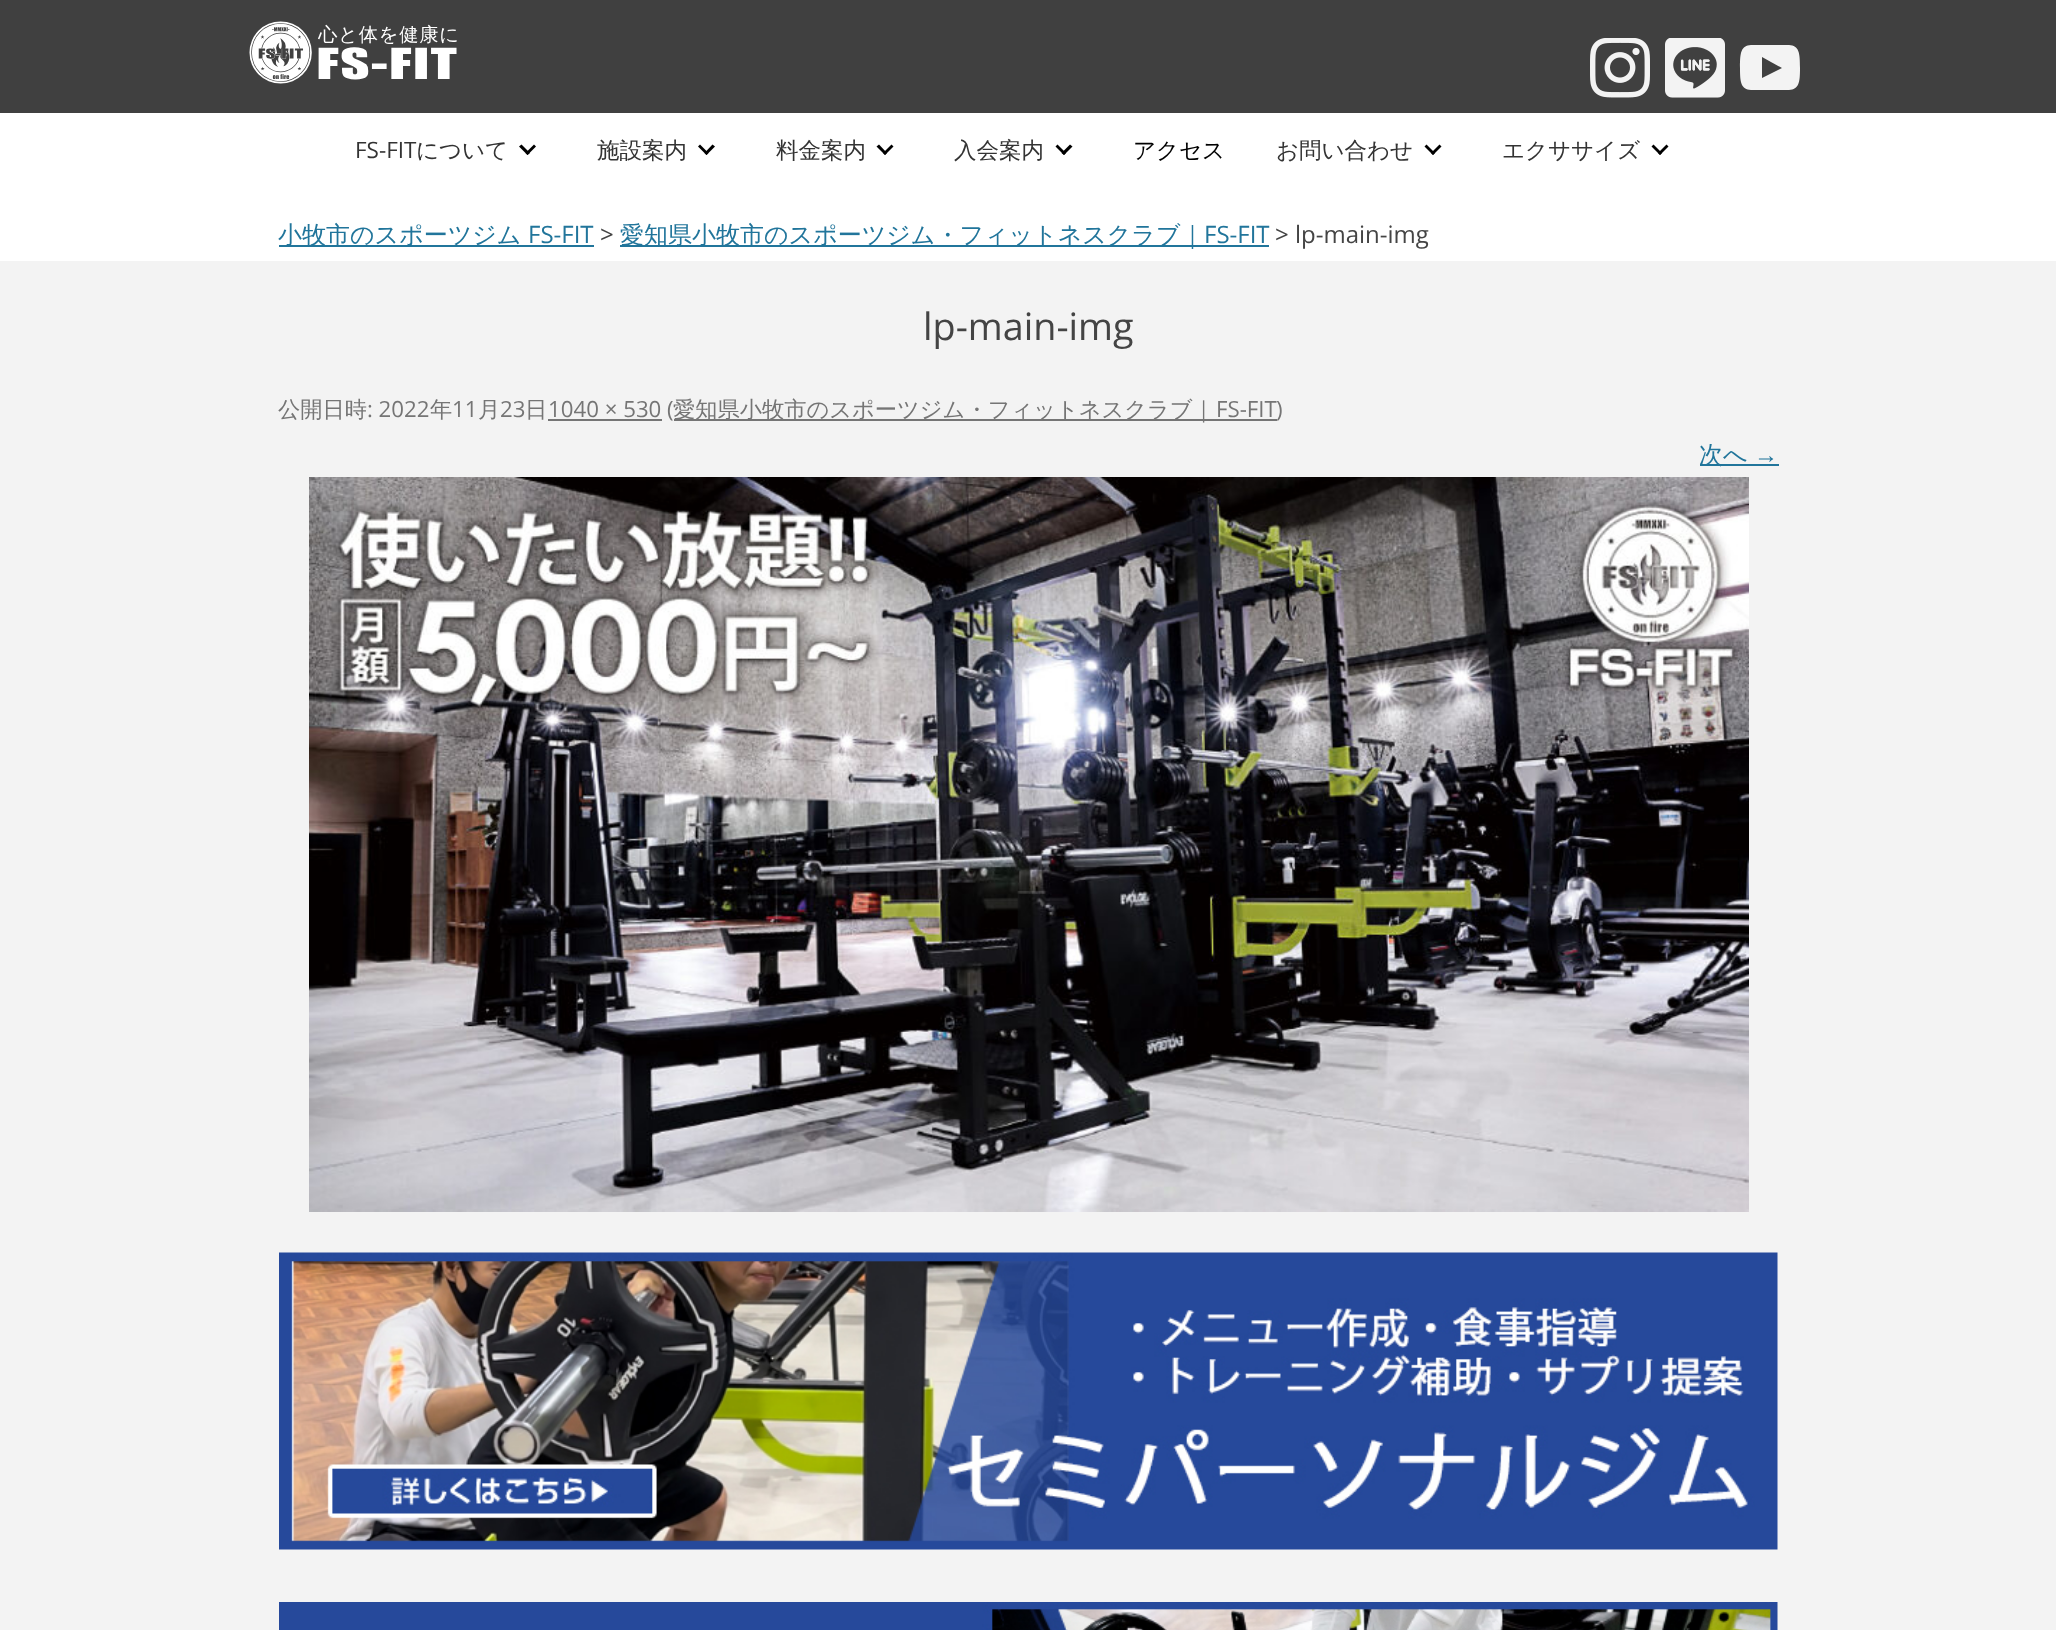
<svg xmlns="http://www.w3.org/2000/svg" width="2056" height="1630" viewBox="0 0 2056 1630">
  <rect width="100%" height="100%" fill="#ffffff"/>
  <rect x="0" y="0" width="2056" height="113" fill="#404040"/>
  <image x="249" y="21" width="208" height="63" href="img1.png"/>
  <image x="1590" y="38" width="60" height="60" href="img2.png"/>
  <image x="1665" y="38" width="60" height="60" href="img3.png"/>
  <path d="M1762 78V57L1782 68ZM1789 45C1780 45 1760 45 1751 45C1741 46 1740 52 1740 68C1740 83 1741 89 1751 90C1760 90 1780 90 1789 90C1799 89 1800 83 1800 68C1800 52 1799 46 1789 45Z" fill="#f3f3f3"/>
  <text x="355" y="158" font-family="Open Sans" font-size="22.5" fill="#333333">FS-FIT</text>
  <text x="416" y="158" font-family="WenQuanYi Zen Hei" font-size="22.5" font-weight="500" fill="#333333">について</text>
  <path d="M536 146.5L527.5 155L525.5 153L534 144.5Z" fill="#000000"/>
  <path d="M530 153L527.5 155L519 146.5L521.5 144.5Z" fill="#000000"/>
  <text x="597" y="158" font-family="WenQuanYi Zen Hei" font-size="22.5" font-weight="500" fill="#333333">施設案内</text>
  <path d="M715 146.5L706.5 155L704.5 153L712.5 144.5Z" fill="#000000"/>
  <path d="M708.5 153L706.5 155L698 146.5L700 144.5Z" fill="#000000"/>
  <text x="776" y="158" font-family="WenQuanYi Zen Hei" font-size="22.5" font-weight="500" fill="#333333">料金案内</text>
  <path d="M893.5 146.5L885 155L883 153L891.5 144.5Z" fill="#000000"/>
  <path d="M887 153L885 155L876.5 146.5L879 144.5Z" fill="#000000"/>
  <text x="954" y="158" font-family="WenQuanYi Zen Hei" font-size="22.5" font-weight="500" fill="#333333">入会案内</text>
  <path d="M1072.5 146.5L1064 155L1061.5 153L1070 144.5Z" fill="#000000"/>
  <path d="M1066 153L1064 155L1055.5 146.5L1057.5 144.5Z" fill="#000000"/>
  <text x="1133" y="158" font-family="WenQuanYi Zen Hei" font-size="22.5" font-weight="500" fill="#000000">アクセス</text>
  <text x="1276" y="158" font-family="WenQuanYi Zen Hei" font-size="22.5" font-weight="500" fill="#333333">お問い合わせ</text>
  <path d="M1441.5 146.5L1433 155L1431 153L1439.5 144.5Z" fill="#000000"/>
  <path d="M1435 153L1433 155L1424.5 146.5L1426.5 144.5Z" fill="#000000"/>
  <text x="1502" y="158" font-family="WenQuanYi Zen Hei" font-size="22.5" font-weight="500" fill="#333333">エクササイズ</text>
  <path d="M1668.5 146.5L1660 155L1658 153L1666.5 144.5Z" fill="#000000"/>
  <path d="M1662 153L1660 155L1651.5 146.5L1653.5 144.5Z" fill="#000000"/>
  <rect x="279" y="245" width="315" height="2" fill="#21759b"/>
  <text x="278" y="243" font-family="WenQuanYi Zen Hei" font-size="24" font-weight="500" fill="#21759b">小牧市のスポーツジム</text>
  <text x="528" y="243" font-family="Open Sans" font-size="24" fill="#21759b">FS-FIT</text>
  <text x="600" y="243" font-family="Open Sans" font-size="24" fill="#444444">&gt;</text>
  <rect x="620" y="245" width="649" height="2" fill="#21759b"/>
  <text x="620" y="243" font-family="WenQuanYi Zen Hei" font-size="24" font-weight="500" fill="#21759b">愛知県小牧市のスポーツジム・フィットネスクラブ｜</text>
  <text x="1204" y="243" font-family="Open Sans" font-size="24" fill="#21759b">FS-FIT</text>
  <text x="1275" y="243" font-family="Open Sans" font-size="24" fill="#444444">&gt; lp-main-img</text>
  <rect x="0" y="261" width="2056" height="1369" fill="#f3f3f3"/>
  <text x="923" y="340" font-family="Open Sans" font-size="37.75" fill="#444444">lp-main-img</text>
  <text x="278" y="417" font-family="WenQuanYi Zen Hei" font-size="22.25" font-weight="500" fill="#757575">公開日時</text>
  <text x="367" y="417" font-family="Open Sans" font-size="22.25" fill="#757575">: 2022</text>
  <text x="430" y="417" font-family="WenQuanYi Zen Hei" font-size="22.25" font-weight="500" fill="#757575">年</text>
  <text x="452" y="417" font-family="Open Sans" font-size="22.25" fill="#757575">11</text>
  <text x="478" y="417" font-family="WenQuanYi Zen Hei" font-size="22.25" font-weight="500" fill="#757575">月</text>
  <text x="500" y="417" font-family="Open Sans" font-size="22.25" fill="#757575">23</text>
  <text x="525" y="417" font-family="WenQuanYi Zen Hei" font-size="22.25" font-weight="500" fill="#757575">日</text>
  <rect x="548" y="419" width="114" height="2" fill="#757575"/>
  <text x="548" y="417" font-family="Open Sans" font-size="22.25" fill="#757575">1040 × 530 (</text>
  <rect x="674" y="419" width="603" height="2" fill="#757575"/>
  <text x="673" y="417" font-family="WenQuanYi Zen Hei" font-size="22.25" font-weight="500" fill="#757575">愛知県小牧市のスポーツジム・フィットネスクラブ｜</text>
  <text x="1216" y="417" font-family="Open Sans" font-size="22.25" fill="#757575">FS-FIT</text>
  <text x="1276" y="417" font-family="Open Sans" font-size="22.25" fill="#757575">)</text>
  <rect x="1700" y="464" width="79" height="2" fill="#21759b"/>
  <text x="1699" y="463" font-family="WenQuanYi Zen Hei" font-size="24" font-weight="500" fill="#21759b">次へ</text>
  <text x="1754" y="463" font-family="Liberation Sans" font-size="24" fill="#21759b">→</text>
  <image x="309" y="477" width="1440" height="735" href="img4.png"/>
  <image x="279" y="1252" width="1499" height="298" href="img5.png"/>
  <image x="279" y="1602" width="1499" height="28" href="img6.png"/>
</svg>
